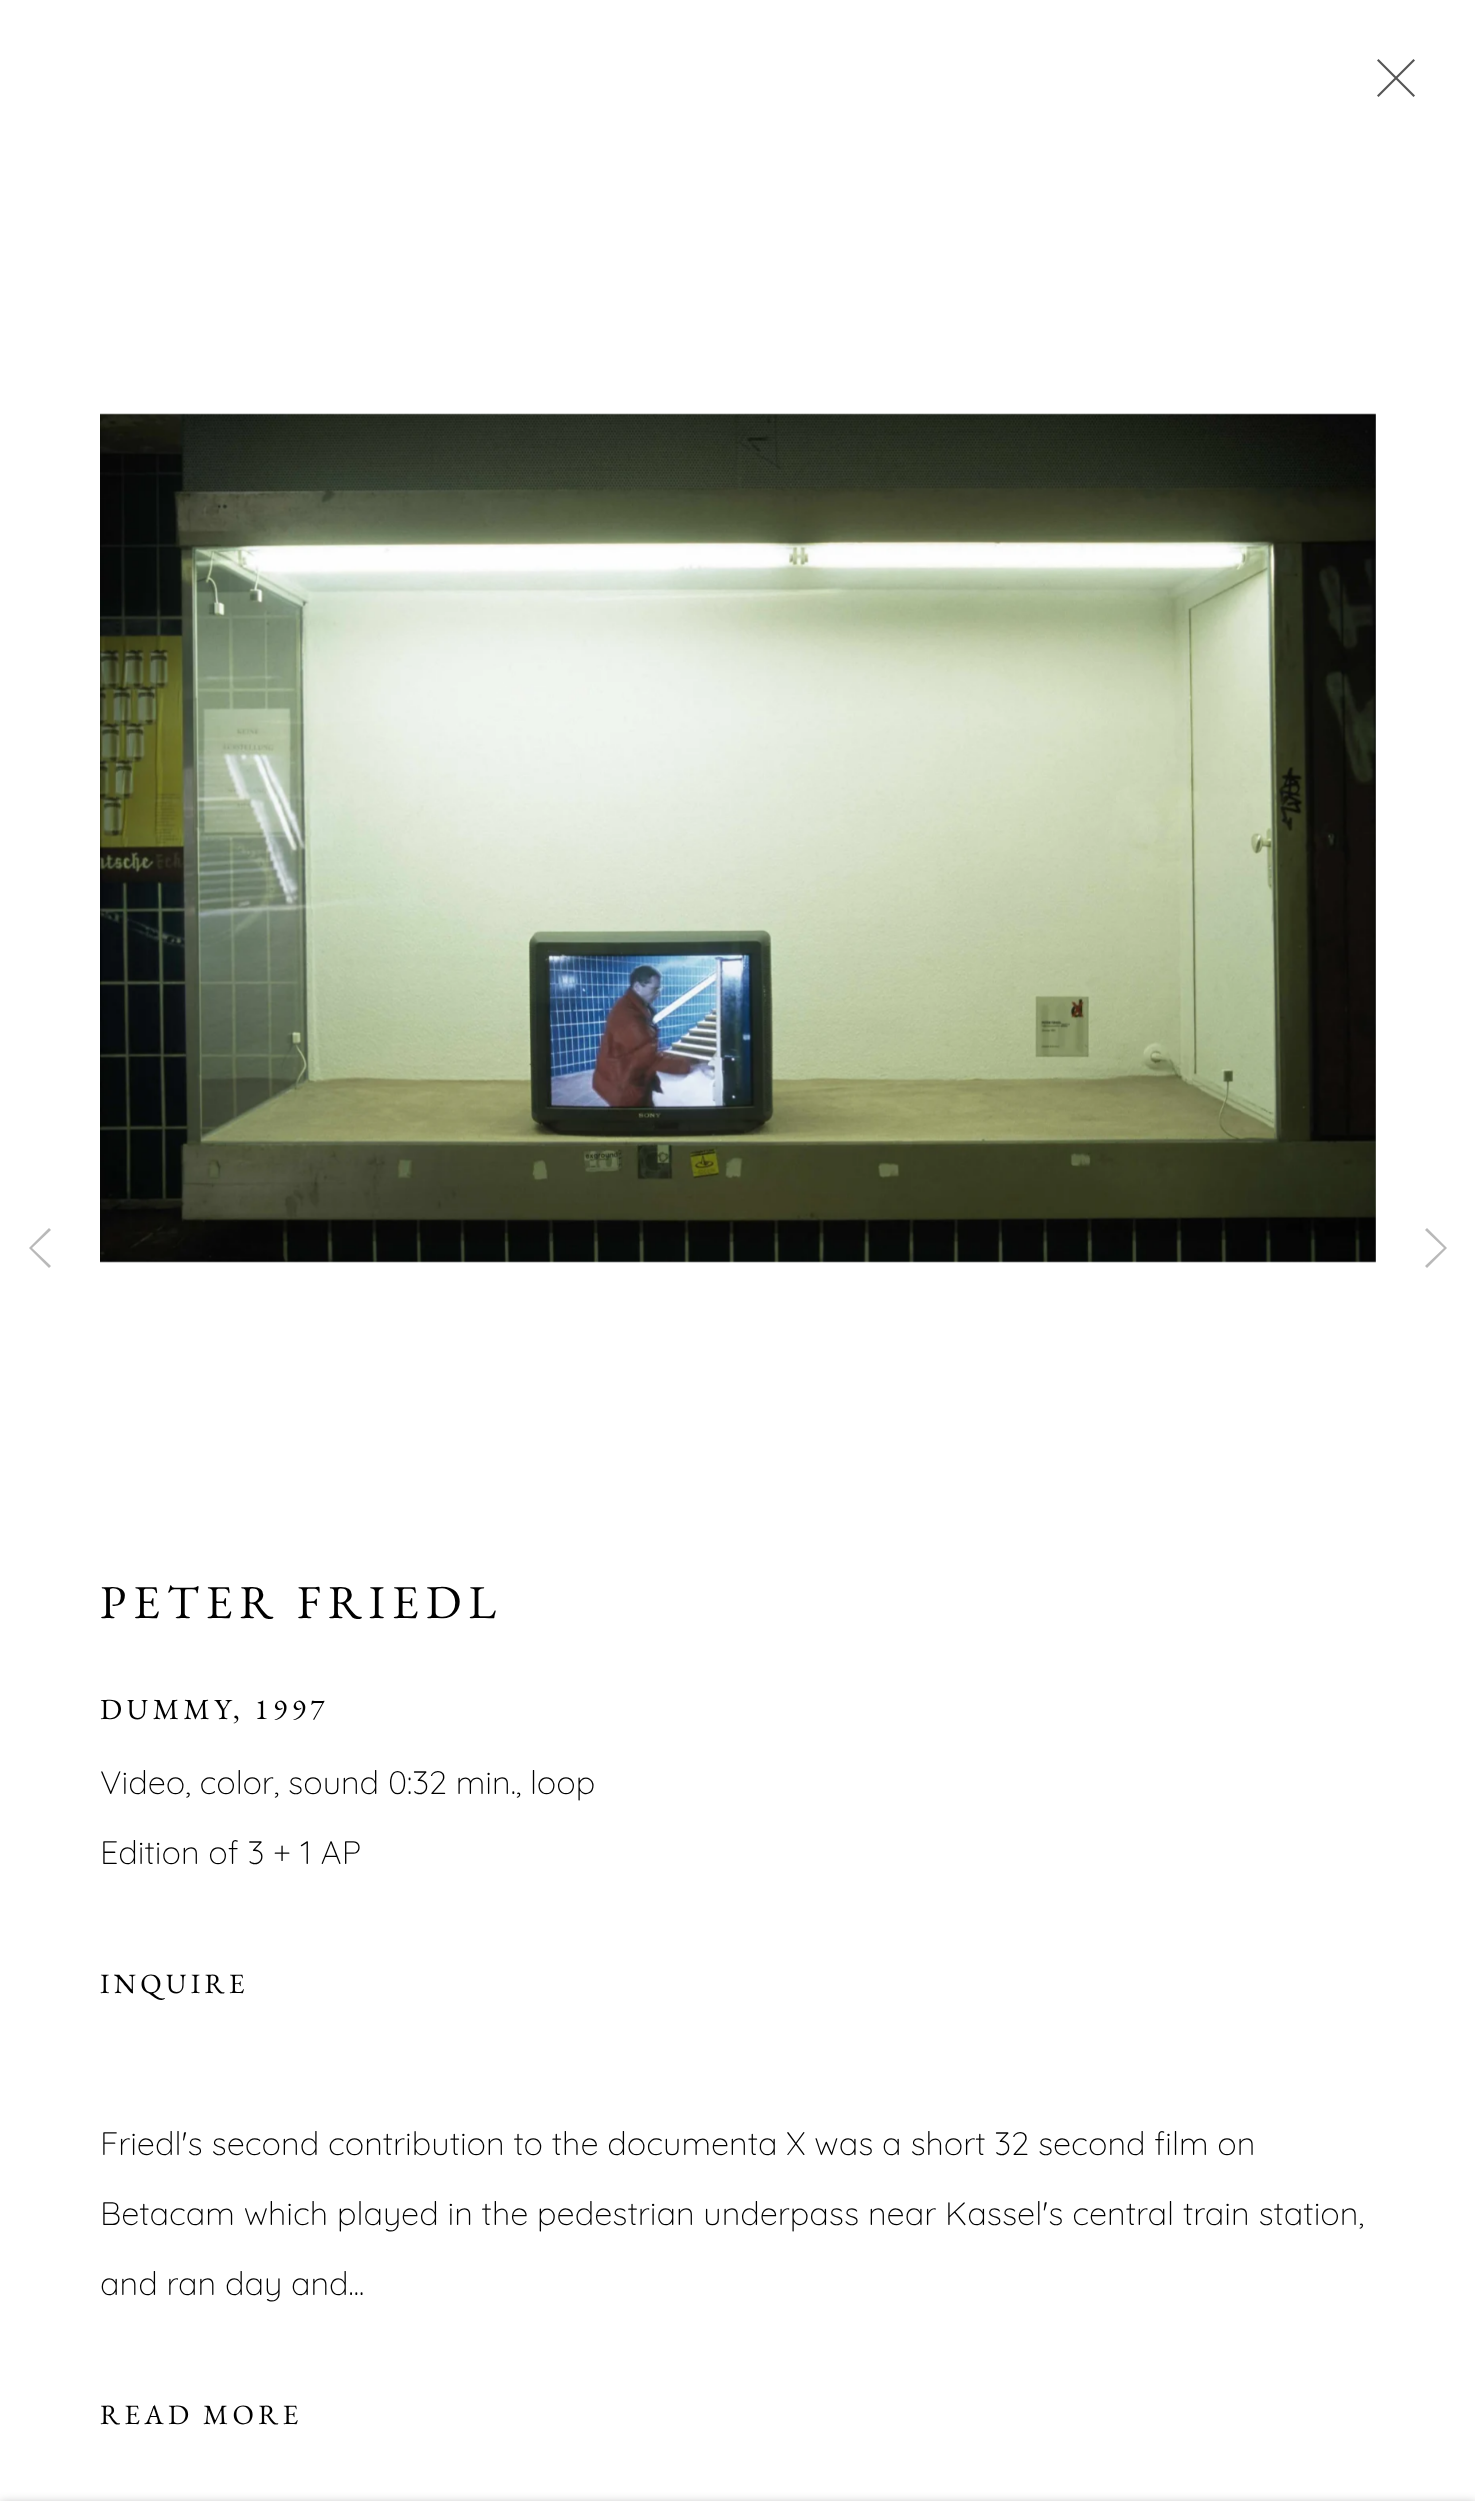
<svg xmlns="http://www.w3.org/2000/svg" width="1475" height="2501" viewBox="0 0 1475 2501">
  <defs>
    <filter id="blur1" x="-50%" y="-200%" width="200%" height="500%"><feGaussianBlur stdDeviation="5"/></filter>
  </defs>
  <rect width="100%" height="100%" fill="#ffffff"/>
  <path d="M1415 60.5L1413.5 59L1396 76.5L1378.5 59L1377 60.5L1394.5 78L1377 95.5L1378.5 97L1396 79.5L1413.5 97L1415 95.5L1397.5 78Z" fill="#555555"/>
  <path d="M31 1250L49 1268L51 1266L32 1248L51 1230L49 1228L29 1248Z" fill="#b9b9b9"/>
  <path d="M1447 1248L1427 1228L1425 1230L1444 1248L1425 1266L1427 1268Z" fill="#b9b9b9"/>
  <image x="100" y="413" width="1276" height="850" href="img1.png"/>
  <text x="100" y="1618" font-family="EB Garamond" font-size="47.25" letter-spacing="7.1" fill="#000000">PETER FRIEDL</text>
  <text x="100" y="1719" font-family="EB Garamond" font-size="29.25" letter-spacing="4.5" fill="#000000">DUMMY</text>
  <text x="233" y="1719" font-family="EB Garamond" font-size="29.25" letter-spacing="4.5" fill="#000000">, 1997</text>
  <text x="100" y="1794" font-family="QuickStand" font-size="32.6" font-weight="300" fill="#000000">Video, color, sound 0:32 min., loop</text>
  <text x="100" y="1864" font-family="QuickStand" font-size="32.6" font-weight="300" fill="#000000">Edition of 3 + 1 AP</text>
  <text x="100" y="1993" font-family="EB Garamond" font-size="28" letter-spacing="4.25" fill="#000000">INQUIRE</text>
  <text x="100" y="2155" font-family="QuickStand" font-size="32.6" font-weight="300" fill="#000000">Friedl's second contribution to the documenta X was a short 32 second film on</text>
  <text x="100" y="2225" font-family="QuickStand" font-size="32.6" font-weight="300" fill="#000000">Betacam which played in the pedestrian underpass near Kassel's central train station,</text>
  <text x="100" y="2295" font-family="QuickStand" font-size="32.6" font-weight="300" fill="#000000">and ran day and...</text>
  <text x="100" y="2424" font-family="EB Garamond" font-size="28" letter-spacing="4.25" fill="#000000">READ MORE</text>
  <rect x="0" y="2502" width="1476" height="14" fill="#000000" fill-opacity="0.23" filter="url(#blur1)"/>
</svg>
